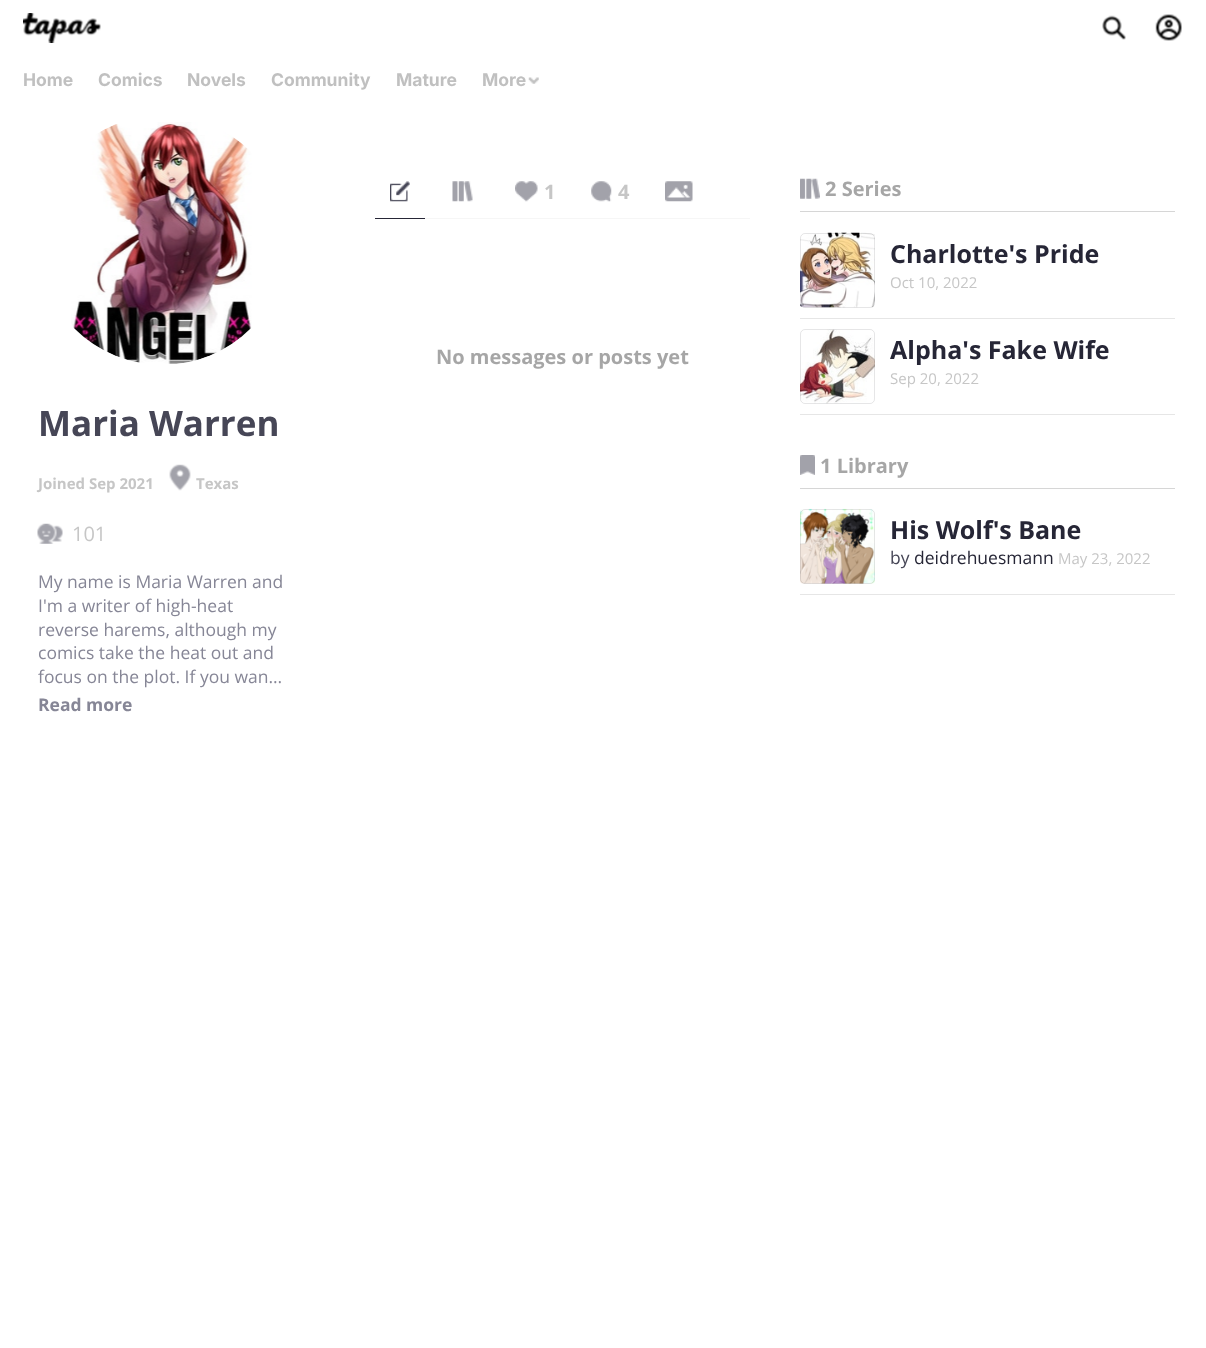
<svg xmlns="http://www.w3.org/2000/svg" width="1206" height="1348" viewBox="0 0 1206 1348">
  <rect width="100%" height="100%" fill="#ffffff"/>
  <image x="23" y="13" width="78" height="30" href="img1.png"/>
  <image x="1102" y="15" width="24" height="25" href="img2.png"/>
  <image x="1155" y="14" width="27" height="27" href="img3.png"/>
  <text x="23" y="86" font-family="Inter" font-size="17.5" font-weight="bold" fill="#c0c0c0">Home</text>
  <text x="98" y="86" font-family="Inter" font-size="17.5" font-weight="bold" fill="#c0c0c0">Comics</text>
  <text x="187" y="86" font-family="Inter" font-size="17.5" font-weight="bold" fill="#c0c0c0">Novels</text>
  <text x="271" y="86" font-family="Inter" font-size="17.5" font-weight="bold" fill="#c0c0c0">Community</text>
  <text x="396" y="86" font-family="Inter" font-size="17.5" font-weight="bold" fill="#c0c0c0">Mature</text>
  <text x="482" y="86" font-family="Inter" font-size="17.5" font-weight="bold" fill="#c0c0c0">More</text>
  <image x="528" y="77" width="11" height="7" href="img4.png"/>
  <image x="71" y="122" width="181" height="242" href="img5.png"/>
  <text x="38" y="436" font-family="Open Sans" font-size="35" font-weight="bold" fill="#464656">Maria Warren</text>
  <text x="38" y="489" font-family="Open Sans" font-size="15" font-weight="bold" fill="#c6c6c6">Joined Sep 2021</text>
  <image x="169" y="464" width="22" height="27" href="img6.png"/>
  <text x="196" y="489" font-family="Open Sans" font-size="15" font-weight="bold" fill="#c6c6c6">Texas</text>
  <image x="37" y="523" width="26" height="21" href="img7.png"/>
  <text x="72" y="541" font-family="Open Sans" font-size="20" fill="#c6c6c6">101</text>
  <text x="38" y="588" font-family="Open Sans" font-size="17.5" fill="#868696">My name is Maria Warren and</text>
  <text x="38" y="612" font-family="Open Sans" font-size="17.5" fill="#868696">I'm a writer of high-heat</text>
  <text x="38" y="636" font-family="Open Sans" font-size="17.5" fill="#868696">reverse harems, although my</text>
  <text x="38" y="659" font-family="Open Sans" font-size="17.5" fill="#868696">comics take the heat out and</text>
  <text x="38" y="683" font-family="Open Sans" font-size="17.5" fill="#868696">focus on the plot. If you wan…</text>
  <text x="38" y="711" font-family="Open Sans" font-size="17.5" font-weight="bold" fill="#868696">Read more</text>
  <rect x="425" y="218" width="325" height="1" fill="#f6f6f6"/>
  <rect x="375" y="218" width="50" height="1" fill="#262636"/>
  <image x="390" y="181" width="20" height="21" href="img8.png"/>
  <image x="452" y="181" width="21" height="21" href="img9.png"/>
  <image x="515" y="181" width="23" height="21" href="img10.png"/>
  <text x="544" y="199" font-family="Open Sans" font-size="20" font-weight="bold" fill="#c6c6c6">1</text>
  <image x="591" y="181" width="21" height="21" href="img11.png"/>
  <text x="618" y="199" font-family="Open Sans" font-size="20" font-weight="bold" fill="#c6c6c6">4</text>
  <image x="665" y="181" width="28" height="21" href="img12.png"/>
  <rect x="800" y="211" width="375" height="1" fill="#d6d6d6"/>
  <image x="800" y="178" width="20" height="21" href="img13.png"/>
  <text x="825" y="196" font-family="Open Sans" font-size="20" font-weight="bold" fill="#a6a6a6">2 Series</text>
  <rect x="800" y="318" width="375" height="1" fill="#e6e6e6"/>
  <image x="800" y="232" width="75" height="76" href="img14.png"/>
  <rect x="800.5" y="233.5" width="74" height="74" rx="4.5" fill="none" stroke="#060616" stroke-opacity="0.1"/>
  <text x="890" y="263" font-family="Open Sans" font-size="25" font-weight="bold" fill="#262636">Charlotte's Pride</text>
  <text x="890" y="288" font-family="Open Sans" font-size="15" fill="#c6c6c6">Oct 10, 2022</text>
  <rect x="800" y="414" width="375" height="1" fill="#e6e6e6"/>
  <image x="800" y="329" width="75" height="75" href="img15.png"/>
  <rect x="800.5" y="329.5" width="74" height="74" rx="4.5" fill="none" stroke="#060616" stroke-opacity="0.1"/>
  <text x="890" y="359" font-family="Open Sans" font-size="25" font-weight="bold" fill="#262636">Alpha's Fake Wife</text>
  <text x="890" y="384" font-family="Open Sans" font-size="15" fill="#c6c6c6">Sep 20, 2022</text>
  <rect x="800" y="488" width="375" height="1" fill="#d6d6d6"/>
  <image x="800" y="455" width="15" height="20" href="img16.png"/>
  <text x="820" y="473" font-family="Open Sans" font-size="20" font-weight="bold" fill="#a6a6a6">1 Library</text>
  <rect x="800" y="594" width="375" height="1" fill="#e6e6e6"/>
  <image x="800" y="508" width="75" height="76" href="img17.png"/>
  <rect x="800.5" y="509.5" width="74" height="74" rx="4.5" fill="none" stroke="#060616" stroke-opacity="0.1"/>
  <text x="890" y="539" font-family="Open Sans" font-size="25" font-weight="bold" fill="#262636">His Wolf's Bane</text>
  <text x="890" y="564" font-family="Open Sans" font-size="17.5" fill="#464656">by</text>
  <text x="914" y="564" font-family="Open Sans" font-size="17.5" fill="#262636">deidrehuesmann</text>
  <text x="1058" y="564" font-family="Open Sans" font-size="15" fill="#c6c6c6">May 23, 2022</text>
  <text x="436" y="364" font-family="Open Sans" font-size="20" font-weight="bold" fill="#a6a6a6">No messages or posts yet</text>
</svg>
